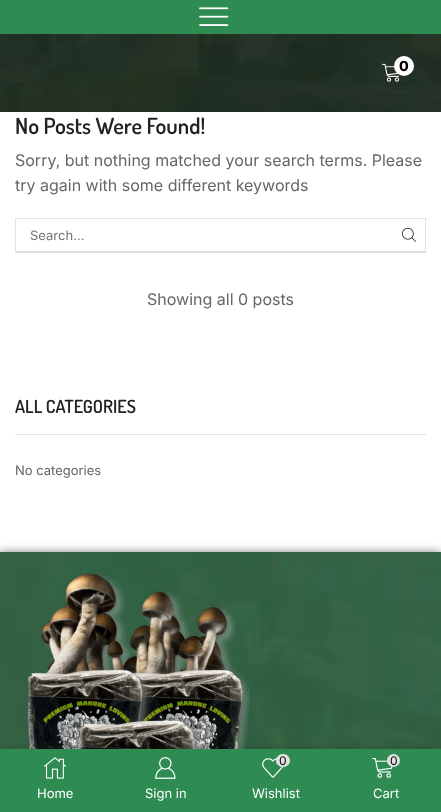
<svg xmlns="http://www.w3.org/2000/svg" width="441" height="812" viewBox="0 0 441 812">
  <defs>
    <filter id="blur1" x="-50%" y="-200%" width="200%" height="500%"><feGaussianBlur stdDeviation="5"/></filter>
    <filter id="blur2" x="-50%" y="-200%" width="200%" height="500%"><feGaussianBlur stdDeviation="6"/></filter>
  </defs>
  <rect width="100%" height="100%" fill="#ffffff"/>
  <rect x="0" y="0" width="441" height="34" fill="#2e8c52"/>
  <image x="199" y="7" width="30" height="19" href="img1.png"/>
  <image x="0" y="34" width="441" height="78" href="img2.png"/>
  <image x="382" y="63" width="18" height="19" href="img3.png"/>
  <circle cx="404" cy="66" r="10" fill="#ffffff"/>
  <text x="399" y="71" font-family="Inter" font-size="14" font-weight="800" fill="#000000">0</text>
  <text x="15" y="134" font-family="Dosis" font-size="22.25" font-weight="600" fill="#222222">No Posts Were Found!</text>
  <text x="15" y="166" font-family="Inter" font-size="16" fill="#666666">Sorry, but nothing matched your search terms. Please</text>
  <text x="15" y="191" font-family="Inter" font-size="16" fill="#666666">try again with some different keywords</text>
  <rect x="15.5" y="218.5" width="410" height="33" fill="none" stroke="#e1e1e1"/>
  <text x="30" y="240" font-family="Inter" font-size="13" fill="#757575">Search...</text>
  <image x="402" y="227" width="14" height="15" href="img4.png"/>
  <rect x="15" y="252" width="411" height="1" fill="#e1e1e1"/>
  <text x="147" y="305" font-family="Inter" font-size="16" fill="#666666">Showing all 0 posts</text>
  <rect x="15" y="434" width="411" height="1" fill="#e1e1e1"/>
  <text x="15" y="413" font-family="Dosis" font-size="18" font-weight="600" fill="#222222">ALL CATEGORIES</text>
  <text x="15" y="475" font-family="Inter" font-size="13" fill="#666666">No categories</text>
  <rect x="0" y="552" width="441" height="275" fill="#000000" fill-opacity="0.5" filter="url(#blur1)"/>
  <image x="0" y="552" width="441" height="197" href="img5.png"/>
  <image x="27" y="573" width="223" height="176" href="img6.png"/>
  <rect x="2" y="749" width="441" height="63" fill="#000000" fill-opacity="0.15" filter="url(#blur2)"/>
  <rect x="0" y="749" width="441" height="63" fill="#2e8c52"/>
  <image x="44" y="757" width="22" height="22" href="img7.png"/>
  <text x="37" y="798" font-family="Inter" font-size="13" fill="#ffffff">Home</text>
  <image x="155" y="757" width="21" height="22" href="img8.png"/>
  <text x="145" y="798" font-family="Inter" font-size="13" fill="#ffffff">Sign in</text>
  <image x="262" y="758" width="22" height="20" href="img9.png"/>
  <rect x="276" y="754" width="14" height="13" rx="6.5" fill="#e1e1e1"/>
  <text x="279" y="765" font-family="Inter" font-size="12" fill="#000000">0</text>
  <text x="252" y="798" font-family="Inter" font-size="13" fill="#ffffff">Wishlist</text>
  <image x="372" y="758" width="21" height="20" href="img10.png"/>
  <circle cx="393.5" cy="760.5" r="6.5" fill="#e1e1e1"/>
  <text x="390" y="765" font-family="Inter" font-size="12" fill="#000000">0</text>
  <text x="373" y="798" font-family="Inter" font-size="13" fill="#ffffff">Cart</text>
</svg>
